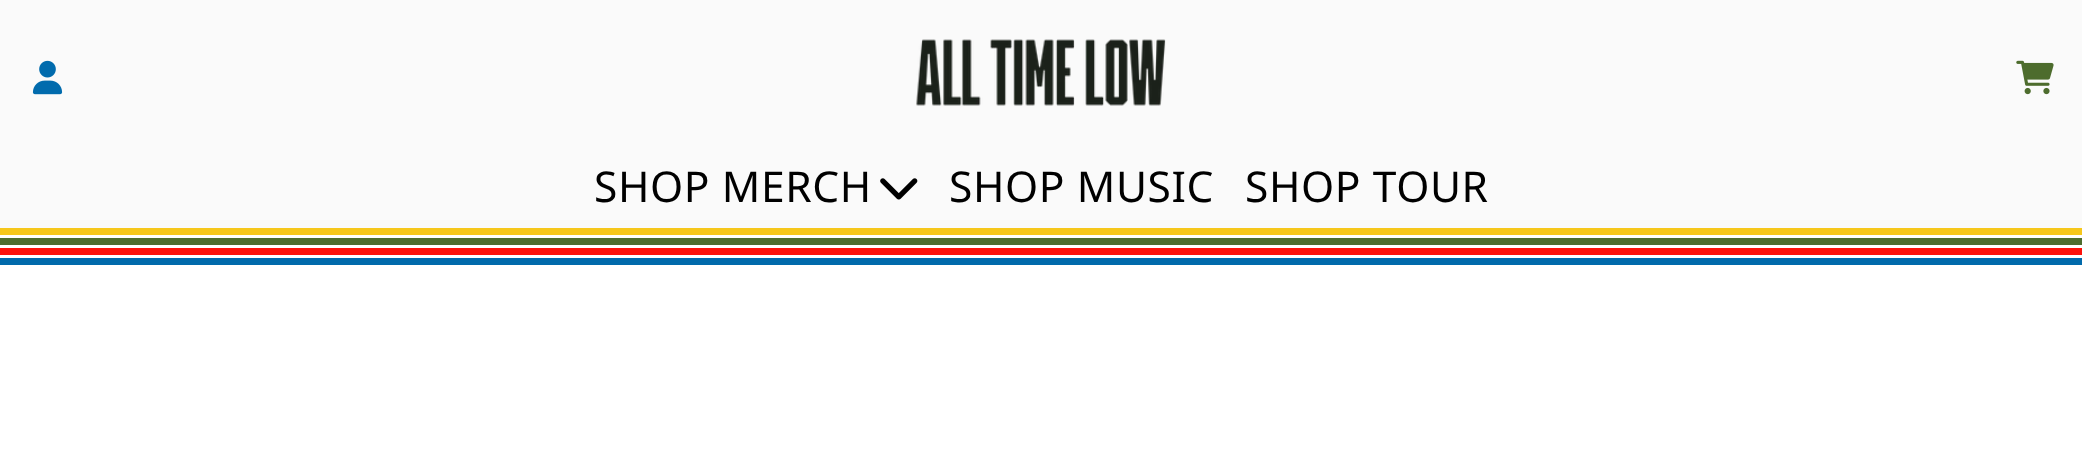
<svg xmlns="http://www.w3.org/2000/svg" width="2082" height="451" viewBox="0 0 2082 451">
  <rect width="100%" height="100%" fill="#ffffff"/>
  <rect x="0" y="0" width="2082" height="228" fill="#fafafa"/>
  <image x="32" y="60" width="31" height="35" href="img1.png"/>
  <image x="916" y="39" width="250" height="67" href="img2.png"/>
  <image x="2016" y="60" width="38" height="35" href="img3.png"/>
  <text x="594" y="202" font-family="Noto Sans" font-size="42.5" letter-spacing="0.6" fill="#000000">SHOP MERCH</text>
  <image x="880" y="178" width="38" height="22" href="img4.png"/>
  <text x="949" y="202" font-family="Noto Sans" font-size="42.5" letter-spacing="0.6" fill="#000000">SHOP MUSIC</text>
  <text x="1245" y="202" font-family="Noto Sans" font-size="42.5" letter-spacing="0.6" fill="#000000">SHOP TOUR</text>
  <rect x="0" y="228" width="2082" height="7" fill="#f6c71b"/>
  <rect x="0" y="238" width="2082" height="7" fill="#4d6d2e"/>
  <rect x="0" y="248" width="2082" height="7" fill="#fd120b"/>
  <rect x="0" y="258" width="2082" height="7" fill="#016aab"/>
</svg>
